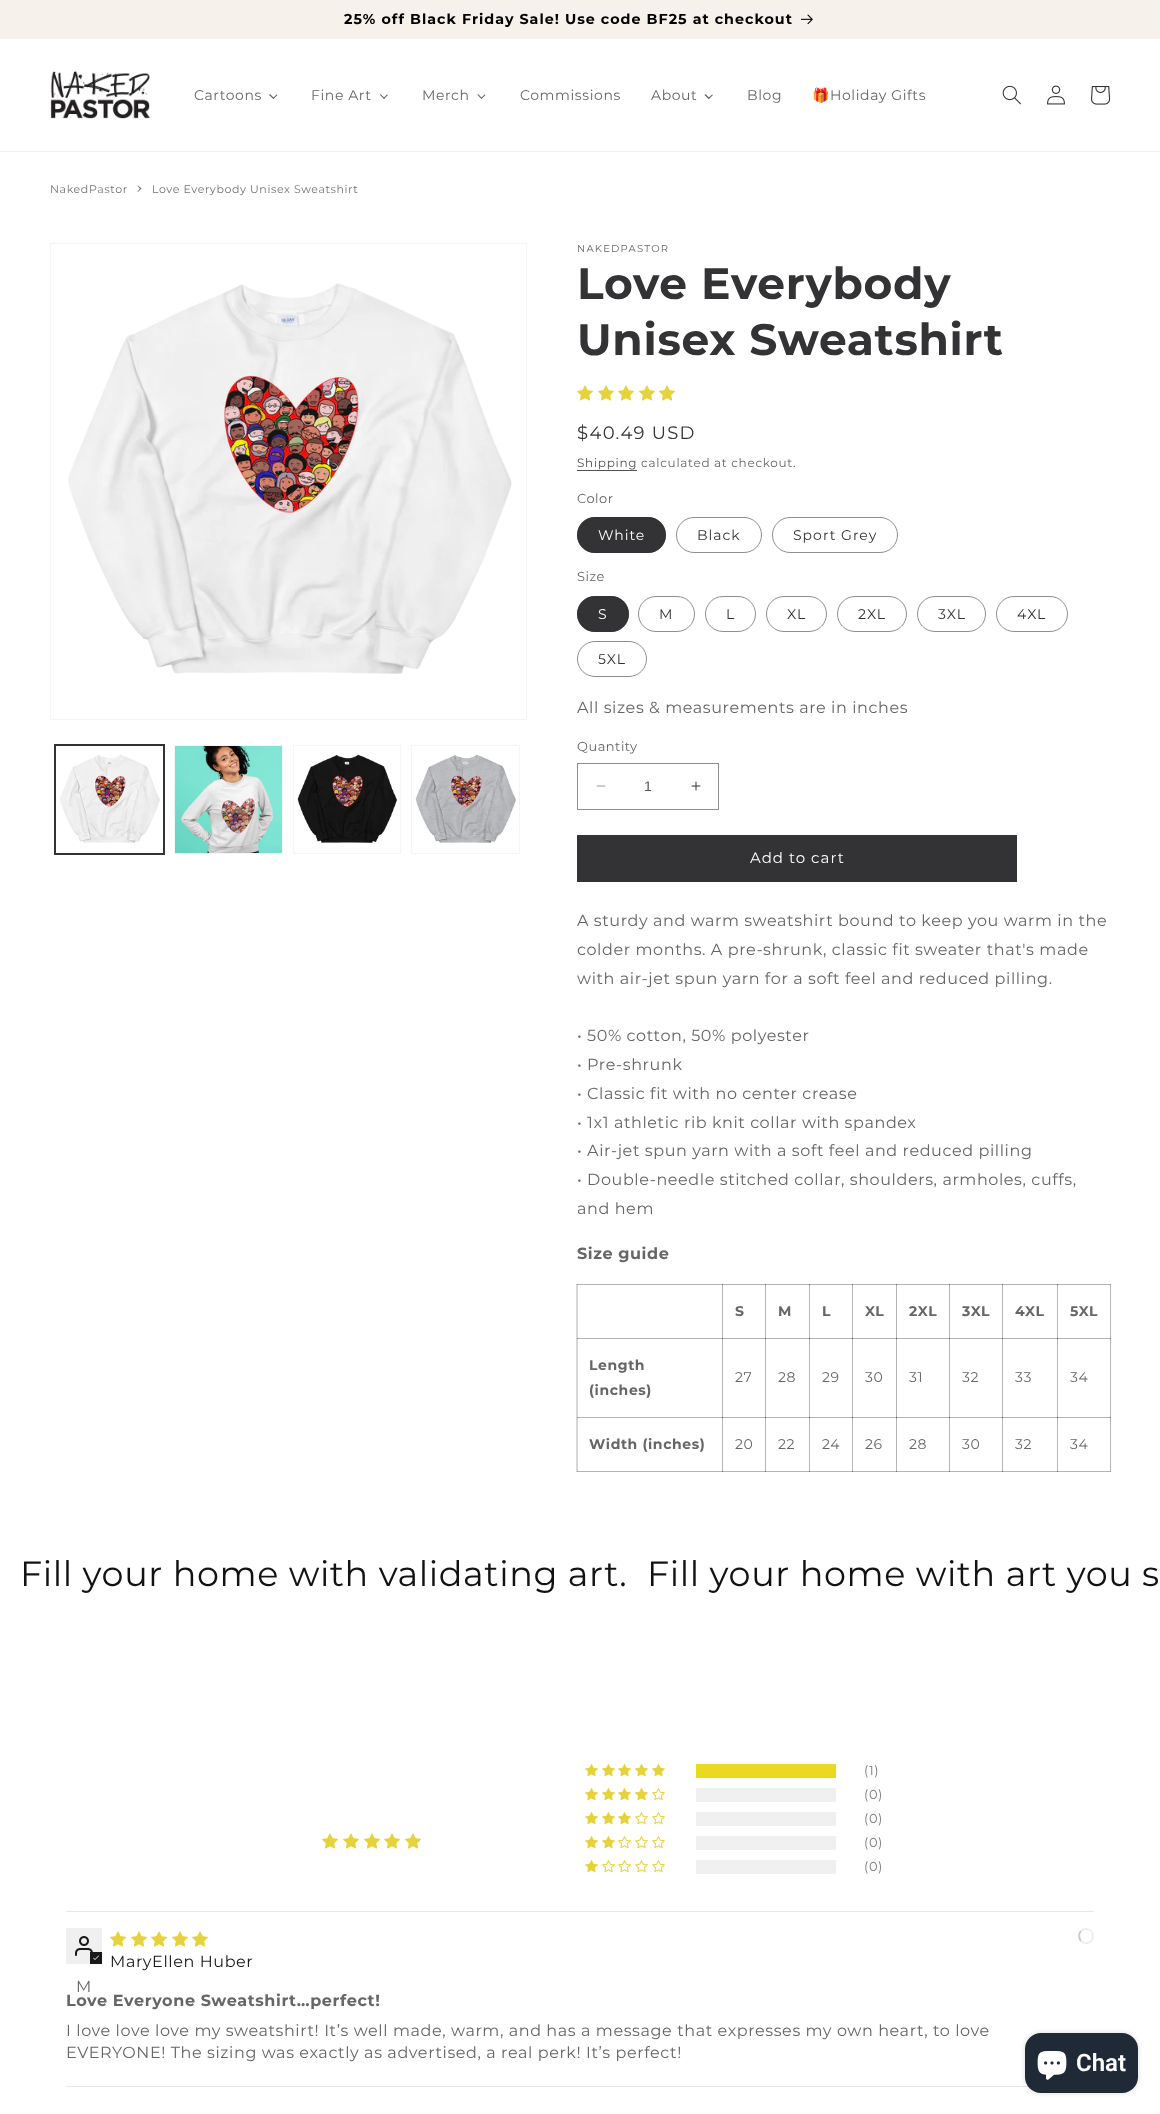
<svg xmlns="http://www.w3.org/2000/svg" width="1160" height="2114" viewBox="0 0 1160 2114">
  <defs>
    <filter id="blur1" x="-50%" y="-200%" width="200%" height="500%"><feGaussianBlur stdDeviation="2.5"/></filter>
  </defs>
  <rect width="100%" height="100%" fill="#ffffff"/>
  <rect x="0" y="0" width="1160" height="38" fill="#f7f1ec"/>
  <rect x="0" y="38" width="1160" height="1" fill="#f8f2ee"/>
  <text x="344" y="24" font-family="Montserrat" font-size="14.3" font-weight="bold" letter-spacing="1" fill="#000000">25% off Black Friday Sale! Use code BF25 at checkout</text>
  <image x="801" y="14" width="12" height="11" href="img1.png"/>
  <rect x="0" y="151" width="1160" height="1" fill="#efefef"/>
  <image x="50" y="71" width="100" height="48" href="img2.png"/>
  <text x="194" y="100" font-family="Montserrat" font-size="14" letter-spacing="0.6" fill="#666568">Cartoons</text>
  <path d="M276.5 94.5L277.5 95L273.5 99L273 98Z" fill="#666568"/>
  <path d="M270 94L274 98L273.5 99L269 95Z" fill="#333235" fill-opacity="0.75"/>
  <text x="311" y="100" font-family="Montserrat" font-size="14" letter-spacing="0.6" fill="#666568">Fine Art</text>
  <path d="M387 94.5L388 95L384 99L383.5 98Z" fill="#666568"/>
  <path d="M380.5 94L384.5 98L384 99L380 95Z" fill="#333235" fill-opacity="0.75"/>
  <text x="422" y="100" font-family="Montserrat" font-size="14" letter-spacing="0.6" fill="#666568">Merch</text>
  <path d="M484.5 94.5L485.5 95L481.5 99L481 98Z" fill="#666568"/>
  <path d="M478 94L482 98L481.5 99L477.5 95Z" fill="#333235" fill-opacity="0.75"/>
  <text x="520" y="100" font-family="Montserrat" font-size="14" letter-spacing="0.6" fill="#666568">Commissions</text>
  <text x="651" y="100" font-family="Montserrat" font-size="14" letter-spacing="0.6" fill="#666568">About</text>
  <path d="M712 94.5L713 95L709 99L708.5 98Z" fill="#666568"/>
  <path d="M705.5 94L709.5 98L708.5 99L704.5 95Z" fill="#333235" fill-opacity="0.75"/>
  <text x="747" y="100" font-family="Montserrat" font-size="14" letter-spacing="0.6" fill="#666568">Blog</text>
  <text x="812" y="100" font-family="Noto Color Emoji" font-size="14" letter-spacing="0.6" fill="#666568">🎁</text>
  <text x="830" y="100" font-family="Montserrat" font-size="14" letter-spacing="0.6" fill="#666568">Holiday Gifts</text>
  <image x="1002" y="85" width="19" height="20" href="img3.png"/>
  <image x="1047" y="85" width="18" height="20" href="img4.png"/>
  <image x="1091" y="86" width="20" height="19" href="img5.png"/>
  <text x="50" y="193" font-family="Montserrat" font-size="11" letter-spacing="0.6" fill="#767373">NakedPastor</text>
  <path d="M138 185.5L141.5 188.5L140.5 189.5L137.5 186Z" fill="#767373"/>
  <path d="M140.5 188L141.5 188.5L138 192L137.5 191.5Z" fill="#767373"/>
  <text x="152" y="193" font-family="Montserrat" font-size="11" letter-spacing="0.6" fill="#767373">Love Everybody Unisex Sweatshirt</text>
  <rect x="50.5" y="243.5" width="476" height="476" fill="none" stroke="#f5f5f5"/>
  <image x="68" y="283" width="444" height="391" href="img6.png"/>
  <rect x="54.5" y="744.5" width="110" height="110" fill="none" stroke="#333235"/>
  <rect x="55.5" y="745.5" width="108" height="108" fill="none" stroke="#333235"/>
  <image x="60" y="754" width="100" height="89" href="img7.png"/>
  <rect x="174.5" y="745.5" width="108" height="108" fill="none" stroke="#f5f5f5"/>
  <image x="175" y="746" width="107" height="107" href="img8.png"/>
  <rect x="293.5" y="745.5" width="107" height="108" fill="none" stroke="#f5f5f5"/>
  <image x="297" y="754" width="100" height="89" href="img9.png"/>
  <rect x="411.5" y="745.5" width="108" height="108" fill="none" stroke="#f5f5f5"/>
  <image x="415" y="754" width="102" height="90" href="img10.png"/>
  <text x="577" y="252" font-family="Montserrat" font-size="10" letter-spacing="1.25" fill="#666568">NAKEDPASTOR</text>
  <text x="577" y="299" font-family="Montserrat" font-size="44" font-weight="bold" letter-spacing="0.7" fill="#333235">Love Everybody</text>
  <text x="577" y="355" font-family="Montserrat" font-size="44" font-weight="bold" letter-spacing="0.7" fill="#333235">Unisex Sweatshirt</text>
  <image x="577" y="385" width="16" height="16" href="img11.png"/>
  <image x="598" y="385" width="16" height="16" href="img11.png"/>
  <image x="618" y="385" width="16" height="16" href="img11.png"/>
  <image x="639" y="385" width="16" height="16" href="img11.png"/>
  <image x="659" y="385" width="16" height="16" href="img11.png"/>
  <text x="577" y="439" font-family="Montserrat" font-size="18" letter-spacing="1.25" fill="#333235">$40.49 USD</text>
  <text x="577" y="467" font-family="Montserrat" font-size="12" letter-spacing="0.7" fill="#525153">Shipping</text>
  <rect x="577" y="470" width="60" height="1" fill="#525153"/>
  <text x="641" y="467" font-family="Montserrat" font-size="12" letter-spacing="0.7" fill="#666568">calculated at checkout.</text>
  <text x="577" y="503" font-family="Montserrat" font-size="13" letter-spacing="0.5" fill="#666568">Color</text>
  <rect x="577" y="517" width="89" height="36" rx="18" fill="#333235"/>
  <rect x="577.5" y="517.5" width="88" height="35" rx="17.5" fill="none" stroke="#333235" stroke-opacity="0.55"/>
  <text x="598" y="540" font-family="Montserrat" font-size="14" letter-spacing="1" fill="#ffffff">White</text>
  <rect x="676.5" y="517.5" width="85" height="35" rx="17.5" fill="none" stroke="#8f8e90"/>
  <text x="697" y="540" font-family="Montserrat" font-size="14" letter-spacing="1" fill="#333235">Black</text>
  <rect x="772.5" y="517.5" width="125" height="35" rx="17.5" fill="none" stroke="#8f8e90"/>
  <text x="793" y="540" font-family="Montserrat" font-size="14" letter-spacing="1" fill="#333235">Sport Grey</text>
  <text x="577" y="581" font-family="Montserrat" font-size="13" letter-spacing="0.5" fill="#666568">Size</text>
  <rect x="577" y="596" width="52" height="36" rx="18" fill="#333235"/>
  <rect x="577.5" y="596.5" width="51" height="35" rx="17.5" fill="none" stroke="#333235" stroke-opacity="0.55"/>
  <text x="598" y="619" font-family="Montserrat" font-size="14" letter-spacing="1" fill="#ffffff">S</text>
  <rect x="638.5" y="596.5" width="56" height="35" rx="17.5" fill="none" stroke="#8f8e90"/>
  <text x="659" y="619" font-family="Montserrat" font-size="14" letter-spacing="1" fill="#333235">M</text>
  <rect x="705.5" y="596.5" width="50" height="35" rx="17.5" fill="none" stroke="#8f8e90"/>
  <text x="726" y="619" font-family="Montserrat" font-size="14" letter-spacing="1" fill="#333235">L</text>
  <rect x="766.5" y="596.5" width="60" height="35" rx="17.5" fill="none" stroke="#8f8e90"/>
  <text x="787" y="619" font-family="Montserrat" font-size="14" letter-spacing="1" fill="#333235">XL</text>
  <rect x="837.5" y="596.5" width="69" height="35" rx="17.5" fill="none" stroke="#8f8e90"/>
  <text x="858" y="619" font-family="Montserrat" font-size="14" letter-spacing="1" fill="#333235">2XL</text>
  <rect x="917.5" y="596.5" width="68" height="35" rx="17.5" fill="none" stroke="#8f8e90"/>
  <text x="938" y="619" font-family="Montserrat" font-size="14" letter-spacing="1" fill="#333235">3XL</text>
  <rect x="996.5" y="596.5" width="71" height="35" rx="17.5" fill="none" stroke="#8f8e90"/>
  <text x="1017" y="619" font-family="Montserrat" font-size="14" letter-spacing="1" fill="#333235">4XL</text>
  <rect x="577.5" y="641.5" width="69" height="35" rx="17.5" fill="none" stroke="#8f8e90"/>
  <text x="598" y="664" font-family="Montserrat" font-size="14" letter-spacing="1" fill="#333235">5XL</text>
  <text x="577" y="713" font-family="Montserrat" font-size="16" letter-spacing="0.6" fill="#666568">All sizes &amp; measurements are in inches</text>
  <text x="577" y="751" font-family="Montserrat" font-size="13" letter-spacing="0.5" fill="#666568">Quantity</text>
  <image x="596" y="785" width="10" height="2" href="img12.png"/>
  <image x="691" y="781" width="10" height="10" href="img13.png"/>
  <rect x="577.5" y="763.5" width="141" height="46" fill="none" stroke="#8f8e90"/>
  <text x="644" y="791" font-family="Liberation Sans" font-size="14" fill="#525153">1</text>
  <rect x="577" y="835" width="440" height="47" fill="#333235"/>
  <text x="750" y="863" font-family="Montserrat" font-size="15" letter-spacing="1" fill="#ffffff">Add to cart</text>
  <text x="577" y="926" font-family="Montserrat" font-size="16" letter-spacing="0.6" fill="#666568">A sturdy and warm sweatshirt bound to keep you warm in the</text>
  <text x="577" y="955" font-family="Montserrat" font-size="16" letter-spacing="0.6" fill="#666568">colder months. A pre-shrunk, classic fit sweater that's made</text>
  <text x="577" y="984" font-family="Montserrat" font-size="16" letter-spacing="0.6" fill="#666568">with air-jet spun yarn for a soft feel and reduced pilling.</text>
  <text x="577" y="1041" font-family="Montserrat" font-size="16" letter-spacing="0.6" fill="#666568">• 50% cotton, 50% polyester</text>
  <text x="577" y="1070" font-family="Montserrat" font-size="16" letter-spacing="0.6" fill="#666568">• Pre-shrunk</text>
  <text x="577" y="1099" font-family="Montserrat" font-size="16" letter-spacing="0.6" fill="#666568">• Classic fit with no center crease</text>
  <text x="577" y="1128" font-family="Montserrat" font-size="16" letter-spacing="0.6" fill="#666568">• 1x1 athletic rib knit collar with spandex</text>
  <text x="577" y="1156" font-family="Montserrat" font-size="16" letter-spacing="0.6" fill="#666568">• Air-jet spun yarn with a soft feel and reduced pilling</text>
  <text x="577" y="1185" font-family="Montserrat" font-size="16" letter-spacing="0.6" fill="#666568">• Double-needle stitched collar, shoulders, armholes, cuffs,</text>
  <text x="577" y="1214" font-family="Montserrat" font-size="16" letter-spacing="0.6" fill="#666568">and hem</text>
  <text x="577" y="1259" font-family="Montserrat" font-size="16" font-weight="bold" letter-spacing="0.6" fill="#666568">Size guide</text>
  <rect x="576.5" y="1284.5" width="534" height="187" fill="none" stroke="#d6d6d7"/>
  <rect x="1057" y="1284" width="54" height="1" fill="#b5b5b7"/>
  <rect x="1057" y="1338" width="54" height="1" fill="#333235" fill-opacity="0.2"/>
  <rect x="1057" y="1417" width="54" height="1" fill="#333235" fill-opacity="0.2"/>
  <rect x="1110" y="1417" width="1" height="55" fill="#333235" fill-opacity="0.2"/>
  <rect x="1110" y="1338" width="1" height="80" fill="#333235" fill-opacity="0.2"/>
  <rect x="1110" y="1284" width="1" height="55" fill="#333235" fill-opacity="0.2"/>
  <rect x="1057" y="1471" width="54" height="1" fill="#333235" fill-opacity="0.2"/>
  <rect x="1057" y="1417" width="1" height="55" fill="#333235" fill-opacity="0.2"/>
  <rect x="1002" y="1417" width="56" height="1" fill="#333235" fill-opacity="0.2"/>
  <rect x="1057" y="1417" width="1" height="55" fill="#333235" fill-opacity="0.2"/>
  <rect x="1057" y="1417" width="54" height="1" fill="#333235" fill-opacity="0.2"/>
  <rect x="1057" y="1338" width="1" height="80" fill="#333235" fill-opacity="0.2"/>
  <rect x="1002" y="1338" width="56" height="1" fill="#333235" fill-opacity="0.2"/>
  <rect x="1057" y="1338" width="1" height="80" fill="#333235" fill-opacity="0.2"/>
  <rect x="1057" y="1338" width="54" height="1" fill="#333235" fill-opacity="0.2"/>
  <rect x="1057" y="1284" width="1" height="55" fill="#333235" fill-opacity="0.2"/>
  <rect x="1002" y="1284" width="56" height="1" fill="#333235" fill-opacity="0.2"/>
  <rect x="1057" y="1284" width="1" height="55" fill="#333235" fill-opacity="0.2"/>
  <rect x="1002" y="1471" width="56" height="1" fill="#333235" fill-opacity="0.2"/>
  <rect x="1002" y="1417" width="1" height="55" fill="#333235" fill-opacity="0.2"/>
  <rect x="949" y="1417" width="54" height="1" fill="#333235" fill-opacity="0.2"/>
  <rect x="1002" y="1417" width="1" height="55" fill="#333235" fill-opacity="0.2"/>
  <rect x="1002" y="1417" width="56" height="1" fill="#333235" fill-opacity="0.2"/>
  <rect x="1002" y="1338" width="1" height="80" fill="#333235" fill-opacity="0.2"/>
  <rect x="949" y="1338" width="54" height="1" fill="#333235" fill-opacity="0.2"/>
  <rect x="1002" y="1338" width="1" height="80" fill="#333235" fill-opacity="0.2"/>
  <rect x="1002" y="1338" width="56" height="1" fill="#333235" fill-opacity="0.2"/>
  <rect x="1002" y="1284" width="1" height="55" fill="#333235" fill-opacity="0.2"/>
  <rect x="949" y="1284" width="54" height="1" fill="#333235" fill-opacity="0.2"/>
  <rect x="1002" y="1284" width="1" height="55" fill="#333235" fill-opacity="0.2"/>
  <rect x="949" y="1471" width="54" height="1" fill="#333235" fill-opacity="0.2"/>
  <rect x="949" y="1417" width="1" height="55" fill="#333235" fill-opacity="0.2"/>
  <rect x="896" y="1417" width="54" height="1" fill="#333235" fill-opacity="0.2"/>
  <rect x="949" y="1417" width="1" height="55" fill="#333235" fill-opacity="0.2"/>
  <rect x="949" y="1417" width="54" height="1" fill="#333235" fill-opacity="0.2"/>
  <rect x="949" y="1338" width="1" height="80" fill="#333235" fill-opacity="0.2"/>
  <rect x="896" y="1338" width="54" height="1" fill="#333235" fill-opacity="0.2"/>
  <rect x="949" y="1338" width="1" height="80" fill="#333235" fill-opacity="0.2"/>
  <rect x="949" y="1338" width="54" height="1" fill="#333235" fill-opacity="0.2"/>
  <rect x="949" y="1284" width="1" height="55" fill="#333235" fill-opacity="0.2"/>
  <rect x="896" y="1284" width="54" height="1" fill="#333235" fill-opacity="0.2"/>
  <rect x="949" y="1284" width="1" height="55" fill="#333235" fill-opacity="0.2"/>
  <rect x="896" y="1471" width="54" height="1" fill="#333235" fill-opacity="0.2"/>
  <rect x="896" y="1417" width="1" height="55" fill="#333235" fill-opacity="0.2"/>
  <rect x="852" y="1417" width="45" height="1" fill="#333235" fill-opacity="0.2"/>
  <rect x="896" y="1417" width="1" height="55" fill="#333235" fill-opacity="0.2"/>
  <rect x="896" y="1417" width="54" height="1" fill="#333235" fill-opacity="0.2"/>
  <rect x="896" y="1338" width="1" height="80" fill="#333235" fill-opacity="0.2"/>
  <rect x="852" y="1338" width="45" height="1" fill="#333235" fill-opacity="0.2"/>
  <rect x="896" y="1338" width="1" height="80" fill="#333235" fill-opacity="0.2"/>
  <rect x="896" y="1338" width="54" height="1" fill="#333235" fill-opacity="0.2"/>
  <rect x="896" y="1284" width="1" height="55" fill="#333235" fill-opacity="0.2"/>
  <rect x="852" y="1284" width="45" height="1" fill="#333235" fill-opacity="0.2"/>
  <rect x="896" y="1284" width="1" height="55" fill="#333235" fill-opacity="0.2"/>
  <rect x="852" y="1471" width="45" height="1" fill="#333235" fill-opacity="0.2"/>
  <rect x="852" y="1417" width="1" height="55" fill="#333235" fill-opacity="0.2"/>
  <rect x="809" y="1417" width="44" height="1" fill="#333235" fill-opacity="0.2"/>
  <rect x="852" y="1417" width="1" height="55" fill="#333235" fill-opacity="0.2"/>
  <rect x="852" y="1417" width="45" height="1" fill="#333235" fill-opacity="0.2"/>
  <rect x="852" y="1338" width="1" height="80" fill="#333235" fill-opacity="0.2"/>
  <rect x="809" y="1338" width="44" height="1" fill="#333235" fill-opacity="0.2"/>
  <rect x="852" y="1338" width="1" height="80" fill="#333235" fill-opacity="0.2"/>
  <rect x="852" y="1338" width="45" height="1" fill="#333235" fill-opacity="0.2"/>
  <rect x="852" y="1284" width="1" height="55" fill="#333235" fill-opacity="0.2"/>
  <rect x="809" y="1284" width="44" height="1" fill="#333235" fill-opacity="0.2"/>
  <rect x="852" y="1284" width="1" height="55" fill="#333235" fill-opacity="0.2"/>
  <rect x="809" y="1471" width="44" height="1" fill="#333235" fill-opacity="0.2"/>
  <rect x="809" y="1417" width="1" height="55" fill="#333235" fill-opacity="0.2"/>
  <rect x="765" y="1417" width="45" height="1" fill="#333235" fill-opacity="0.2"/>
  <rect x="809" y="1417" width="1" height="55" fill="#333235" fill-opacity="0.2"/>
  <rect x="809" y="1417" width="44" height="1" fill="#333235" fill-opacity="0.2"/>
  <rect x="809" y="1338" width="1" height="80" fill="#333235" fill-opacity="0.2"/>
  <rect x="765" y="1338" width="45" height="1" fill="#333235" fill-opacity="0.2"/>
  <rect x="809" y="1338" width="1" height="80" fill="#333235" fill-opacity="0.2"/>
  <rect x="809" y="1338" width="44" height="1" fill="#333235" fill-opacity="0.2"/>
  <rect x="809" y="1284" width="1" height="55" fill="#333235" fill-opacity="0.2"/>
  <rect x="765" y="1284" width="45" height="1" fill="#333235" fill-opacity="0.2"/>
  <rect x="809" y="1284" width="1" height="55" fill="#333235" fill-opacity="0.2"/>
  <rect x="765" y="1471" width="45" height="1" fill="#333235" fill-opacity="0.2"/>
  <rect x="765" y="1417" width="1" height="55" fill="#333235" fill-opacity="0.2"/>
  <rect x="722" y="1417" width="44" height="1" fill="#333235" fill-opacity="0.2"/>
  <rect x="765" y="1417" width="1" height="55" fill="#333235" fill-opacity="0.2"/>
  <rect x="765" y="1417" width="45" height="1" fill="#333235" fill-opacity="0.2"/>
  <rect x="765" y="1338" width="1" height="80" fill="#333235" fill-opacity="0.2"/>
  <rect x="722" y="1338" width="44" height="1" fill="#333235" fill-opacity="0.2"/>
  <rect x="765" y="1338" width="1" height="80" fill="#333235" fill-opacity="0.2"/>
  <rect x="765" y="1338" width="45" height="1" fill="#333235" fill-opacity="0.2"/>
  <rect x="765" y="1284" width="1" height="55" fill="#333235" fill-opacity="0.2"/>
  <rect x="722" y="1284" width="44" height="1" fill="#333235" fill-opacity="0.2"/>
  <rect x="765" y="1284" width="1" height="55" fill="#333235" fill-opacity="0.2"/>
  <rect x="722" y="1471" width="44" height="1" fill="#333235" fill-opacity="0.2"/>
  <rect x="722" y="1417" width="1" height="55" fill="#333235" fill-opacity="0.2"/>
  <rect x="577" y="1417" width="146" height="1" fill="#333235" fill-opacity="0.2"/>
  <rect x="722" y="1417" width="1" height="55" fill="#333235" fill-opacity="0.2"/>
  <rect x="722" y="1417" width="44" height="1" fill="#333235" fill-opacity="0.2"/>
  <rect x="722" y="1338" width="1" height="80" fill="#333235" fill-opacity="0.2"/>
  <rect x="577" y="1338" width="146" height="1" fill="#333235" fill-opacity="0.2"/>
  <rect x="722" y="1338" width="1" height="80" fill="#333235" fill-opacity="0.2"/>
  <rect x="722" y="1338" width="44" height="1" fill="#333235" fill-opacity="0.2"/>
  <rect x="722" y="1284" width="1" height="55" fill="#333235" fill-opacity="0.2"/>
  <rect x="577" y="1284" width="146" height="1" fill="#333235" fill-opacity="0.2"/>
  <rect x="722" y="1284" width="1" height="55" fill="#333235" fill-opacity="0.2"/>
  <rect x="577" y="1471" width="146" height="1" fill="#333235" fill-opacity="0.2"/>
  <rect x="577" y="1417" width="1" height="55" fill="#333235" fill-opacity="0.2"/>
  <rect x="577" y="1417" width="146" height="1" fill="#333235" fill-opacity="0.2"/>
  <rect x="577" y="1338" width="1" height="80" fill="#333235" fill-opacity="0.2"/>
  <rect x="577" y="1338" width="146" height="1" fill="#333235" fill-opacity="0.2"/>
  <rect x="577" y="1284" width="1" height="55" fill="#333235" fill-opacity="0.2"/>
  <text x="735" y="1316" font-family="Montserrat" font-size="14" font-weight="bold" letter-spacing="0.6" fill="#666568">S</text>
  <text x="778" y="1316" font-family="Montserrat" font-size="14" font-weight="bold" letter-spacing="0.6" fill="#666568">M</text>
  <text x="822" y="1316" font-family="Montserrat" font-size="14" font-weight="bold" letter-spacing="0.6" fill="#666568">L</text>
  <text x="865" y="1316" font-family="Montserrat" font-size="14" font-weight="bold" letter-spacing="0.6" fill="#666568">XL</text>
  <text x="909" y="1316" font-family="Montserrat" font-size="14" font-weight="bold" letter-spacing="0.6" fill="#666568">2XL</text>
  <text x="962" y="1316" font-family="Montserrat" font-size="14" font-weight="bold" letter-spacing="0.6" fill="#666568">3XL</text>
  <text x="1015" y="1316" font-family="Montserrat" font-size="14" font-weight="bold" letter-spacing="0.6" fill="#666568">4XL</text>
  <text x="1070" y="1316" font-family="Montserrat" font-size="14" font-weight="bold" letter-spacing="0.6" fill="#666568">5XL</text>
  <text x="589" y="1370" font-family="Montserrat" font-size="14" font-weight="bold" letter-spacing="0.6" fill="#666568">Length</text>
  <text x="589" y="1395" font-family="Montserrat" font-size="14" font-weight="bold" letter-spacing="0.6" fill="#666568">(inches)</text>
  <text x="735" y="1382" font-family="Montserrat" font-size="14" letter-spacing="0.6" fill="#666568">27</text>
  <text x="778" y="1382" font-family="Montserrat" font-size="14" letter-spacing="0.6" fill="#666568">28</text>
  <text x="822" y="1382" font-family="Montserrat" font-size="14" letter-spacing="0.6" fill="#666568">29</text>
  <text x="865" y="1382" font-family="Montserrat" font-size="14" letter-spacing="0.6" fill="#666568">30</text>
  <text x="909" y="1382" font-family="Montserrat" font-size="14" letter-spacing="0.6" fill="#666568">31</text>
  <text x="962" y="1382" font-family="Montserrat" font-size="14" letter-spacing="0.6" fill="#666568">32</text>
  <text x="1015" y="1382" font-family="Montserrat" font-size="14" letter-spacing="0.6" fill="#666568">33</text>
  <text x="1070" y="1382" font-family="Montserrat" font-size="14" letter-spacing="0.6" fill="#666568">34</text>
  <text x="589" y="1449" font-family="Montserrat" font-size="14" font-weight="bold" letter-spacing="0.6" fill="#666568">Width (inches)</text>
  <text x="735" y="1449" font-family="Montserrat" font-size="14" letter-spacing="0.6" fill="#666568">20</text>
  <text x="778" y="1449" font-family="Montserrat" font-size="14" letter-spacing="0.6" fill="#666568">22</text>
  <text x="822" y="1449" font-family="Montserrat" font-size="14" letter-spacing="0.6" fill="#666568">24</text>
  <text x="865" y="1449" font-family="Montserrat" font-size="14" letter-spacing="0.6" fill="#666568">26</text>
  <text x="909" y="1449" font-family="Montserrat" font-size="14" letter-spacing="0.6" fill="#666568">28</text>
  <text x="962" y="1449" font-family="Montserrat" font-size="14" letter-spacing="0.6" fill="#666568">30</text>
  <text x="1015" y="1449" font-family="Montserrat" font-size="14" letter-spacing="0.6" fill="#666568">32</text>
  <text x="1070" y="1449" font-family="Montserrat" font-size="14" letter-spacing="0.6" fill="#666568">34</text>
  <text x="20" y="1586" font-family="Montserrat" font-size="35" letter-spacing="0.6" fill="#121212">Fill your home with validating art.</text>
  <text x="647" y="1586" font-family="Montserrat" font-size="35" letter-spacing="0.6" fill="#121212">Fill your home with art you s</text>
  <image x="322" y="1833" width="16" height="16" href="img11.png"/>
  <image x="343" y="1833" width="16" height="16" href="img11.png"/>
  <image x="364" y="1833" width="16" height="16" href="img11.png"/>
  <image x="384" y="1833" width="16" height="16" href="img11.png"/>
  <image x="405" y="1833" width="16" height="16" href="img11.png"/>
  <image x="585" y="1764" width="13" height="13" href="img14.png"/>
  <image x="602" y="1764" width="13" height="13" href="img14.png"/>
  <image x="618" y="1764" width="13" height="13" href="img14.png"/>
  <image x="635" y="1764" width="13" height="13" href="img14.png"/>
  <image x="652" y="1764" width="13" height="13" href="img14.png"/>
  <rect x="696" y="1764" width="140" height="14" fill="#ebd921"/>
  <text x="864" y="1775" font-family="Montserrat" font-size="13" letter-spacing="0.6" fill="#7b7b7b">(1)</text>
  <image x="585" y="1788" width="13" height="13" href="img14.png"/>
  <image x="602" y="1788" width="13" height="13" href="img14.png"/>
  <image x="618" y="1788" width="13" height="13" href="img14.png"/>
  <image x="635" y="1788" width="13" height="13" href="img14.png"/>
  <image x="652" y="1788" width="13" height="13" href="img15.png"/>
  <rect x="696" y="1788" width="140" height="14" fill="#f0f0f0"/>
  <text x="864" y="1799" font-family="Montserrat" font-size="13" letter-spacing="0.6" fill="#7b7b7b">(0)</text>
  <image x="585" y="1812" width="13" height="13" href="img14.png"/>
  <image x="602" y="1812" width="13" height="13" href="img14.png"/>
  <image x="618" y="1812" width="13" height="13" href="img14.png"/>
  <image x="635" y="1812" width="13" height="13" href="img15.png"/>
  <image x="652" y="1812" width="13" height="13" href="img15.png"/>
  <rect x="696" y="1812" width="140" height="14" fill="#f0f0f0"/>
  <text x="864" y="1823" font-family="Montserrat" font-size="13" letter-spacing="0.6" fill="#7b7b7b">(0)</text>
  <image x="585" y="1836" width="13" height="13" href="img14.png"/>
  <image x="602" y="1836" width="13" height="13" href="img14.png"/>
  <image x="618" y="1836" width="13" height="13" href="img15.png"/>
  <image x="635" y="1836" width="13" height="13" href="img15.png"/>
  <image x="652" y="1836" width="13" height="13" href="img15.png"/>
  <rect x="696" y="1836" width="140" height="14" fill="#f0f0f0"/>
  <text x="864" y="1847" font-family="Montserrat" font-size="13" letter-spacing="0.6" fill="#7b7b7b">(0)</text>
  <image x="585" y="1860" width="13" height="13" href="img14.png"/>
  <image x="602" y="1860" width="13" height="13" href="img15.png"/>
  <image x="618" y="1860" width="13" height="13" href="img15.png"/>
  <image x="635" y="1860" width="13" height="13" href="img15.png"/>
  <image x="652" y="1860" width="13" height="13" href="img15.png"/>
  <rect x="696" y="1860" width="140" height="14" fill="#f0f0f0"/>
  <text x="864" y="1871" font-family="Montserrat" font-size="13" letter-spacing="0.6" fill="#7b7b7b">(0)</text>
  <rect x="66" y="1911" width="1028" height="1" fill="#e8e8e8"/>
  <image x="110" y="1931" width="16" height="16" href="img11.png"/>
  <image x="131" y="1931" width="16" height="16" href="img11.png"/>
  <image x="151" y="1931" width="16" height="16" href="img11.png"/>
  <image x="172" y="1931" width="16" height="16" href="img11.png"/>
  <image x="192" y="1931" width="16" height="16" href="img11.png"/>
  <path d="M1081 1931C1082.5 1929.5 1084 1929 1086 1929C1094.5 1929 1095.5 1941 1087.5 1943C1085 1943.5 1082.5 1942.5 1081 1941" fill="none" stroke="#eeeeee" stroke-width="2"/>
  <path d="M1081 1941C1078.5 1938.5 1078.5 1933.5 1081 1931" fill="none" stroke="#cccccc" stroke-width="2"/>
  <text x="110" y="1967" font-family="Montserrat" font-size="16" letter-spacing="0.6" fill="#191919">MaryEllen Huber</text>
  <rect x="66" y="1928" width="36" height="36" fill="#f0f0f0"/>
  <image x="75" y="1936" width="18" height="20" href="img16.png"/>
  <rect x="90" y="1952" width="12" height="12" fill="#191919"/>
  <image x="93" y="1955" width="6" height="5" href="img17.png"/>
  <text x="76" y="1992" font-family="Montserrat" font-size="16" letter-spacing="0.6" fill="#666568">M</text>
  <text x="66" y="2006" font-family="Montserrat" font-size="16" font-weight="bold" letter-spacing="0.6" fill="#666568">Love Everyone Sweatshirt…perfect!</text>
  <text x="66" y="2036" font-family="Montserrat" font-size="16" letter-spacing="0.6" fill="#666568">I love love love my sweatshirt! It’s well made, warm, and has a message that expresses my own heart, to love</text>
  <text x="66" y="2058" font-family="Montserrat" font-size="16" letter-spacing="0.6" fill="#666568">EVERYONE! The sizing was exactly as advertised, a real perk! It’s perfect!</text>
  <rect x="66" y="2086" width="963" height="1" fill="#e8e8e8"/>
  <rect x="1025" y="2033" width="113" height="60" rx="16" fill="#000000" fill-opacity="0.15" filter="url(#blur1)"/>
  <rect x="1025" y="2033" width="113" height="60" rx="16" fill="#202a36"/>
  <image x="1037" y="2051" width="30" height="29" href="img18.png"/>
  <text x="1076" y="2071" font-family="Roboto" font-size="24" font-weight="600" fill="#ffffff">Chat</text>
</svg>
